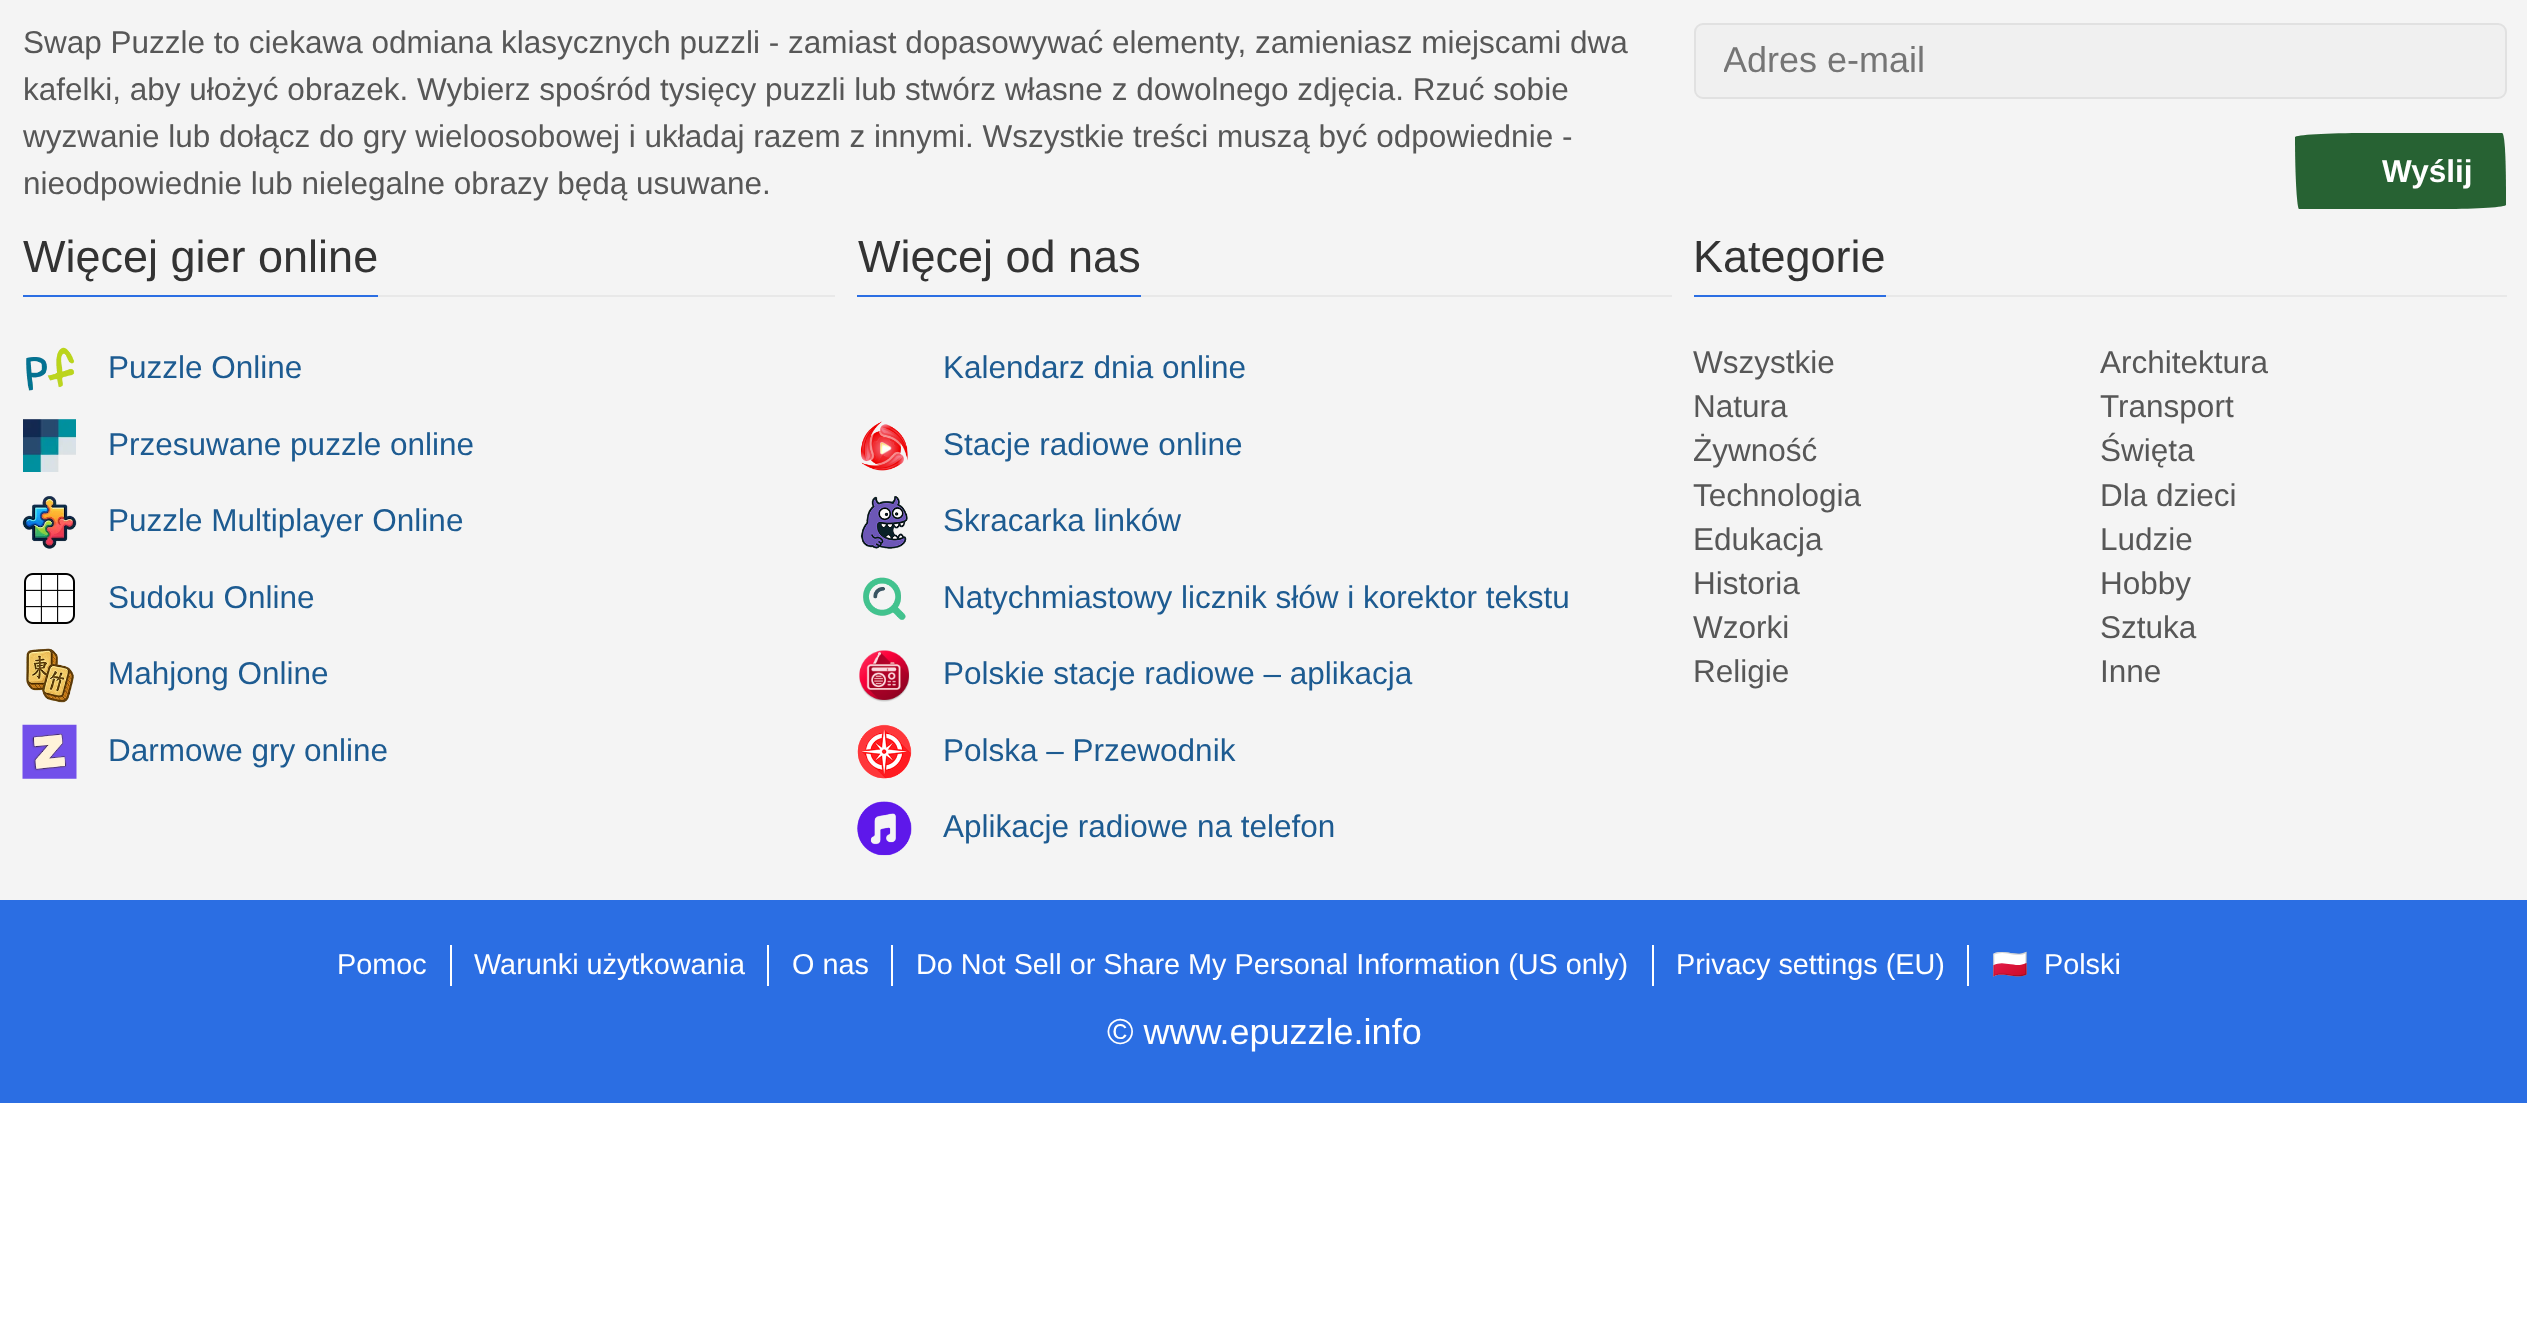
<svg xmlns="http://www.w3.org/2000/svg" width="2527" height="1326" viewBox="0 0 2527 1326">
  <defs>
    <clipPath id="clip1"><rect x="1724" y="41" width="753" height="40"/></clipPath>
  </defs>
  <rect width="100%" height="100%" fill="#ffffff"/>
  <rect x="0" y="0" width="2527" height="900" fill="#f4f4f4"/>
  <text x="23" y="53" font-family="Liberation Sans" font-size="31.5" fill="#575757">Swap Puzzle to ciekawa odmiana klasycznych puzzli - zamiast dopasowywać elementy, zamieniasz miejscami dwa</text>
  <text x="23" y="100" font-family="Liberation Sans" font-size="31.5" fill="#575757">kafelki, aby ułożyć obrazek. Wybierz spośród tysięcy puzzli lub stwórz własne z dowolnego zdjęcia. Rzuć sobie</text>
  <text x="23" y="147" font-family="Liberation Sans" font-size="31.5" fill="#575757">wyzwanie lub dołącz do gry wieloosobowej i układaj razem z innymi. Wszystkie treści muszą być odpowiednie -</text>
  <text x="23" y="194" font-family="Liberation Sans" font-size="31.5" fill="#575757">nieodpowiednie lub nielegalne obrazy będą usuwane.</text>
  <rect x="1695" y="24" width="811" height="74" rx="8" fill="#f0f0f0" stroke="#e1e1e1" stroke-width="2"/>
  <g clip-path="url(#clip1)">
    <text x="1723" y="72" font-family="Liberation Sans" font-size="36" fill="#757575">Adres e-mail</text>
  </g>
  <path d="M2367 133H2502C2505 133 2506 161 2506 196V205C2506 207 2478 209 2443 209H2299C2297 209 2295 177 2295 137C2295 135 2327 133 2367 133Z" fill="#276233"/>
  <text x="2382" y="182" font-family="Liberation Sans" font-size="31.5" font-weight="bold" fill="#ffffff">Wyślij</text>
  <rect x="378" y="295" width="457" height="2" fill="#e8e8e8"/>
  <rect x="23" y="295" width="355" height="2" fill="#2b6ee3"/>
  <text x="23" y="272" font-family="Liberation Sans" font-size="45" fill="#333333">Więcej gier online</text>
  <image x="26" y="347" width="49" height="44" href="img1.png"/>
  <text x="108" y="378" font-family="Liberation Sans" font-size="31.5" fill="#1d5b91">Puzzle Online</text>
  <image x="23" y="419" width="53" height="53" href="img2.png"/>
  <text x="108" y="455" font-family="Liberation Sans" font-size="31.5" fill="#1d5b91">Przesuwane puzzle online</text>
  <image x="22" y="496" width="55" height="53" href="img3.png"/>
  <text x="108" y="531" font-family="Liberation Sans" font-size="31.5" fill="#1d5b91">Puzzle Multiplayer Online</text>
  <image x="24" y="573" width="51" height="51" href="img4.png"/>
  <text x="108" y="608" font-family="Liberation Sans" font-size="31.5" fill="#1d5b91">Sudoku Online</text>
  <image x="26" y="648" width="48" height="55" href="img5.png"/>
  <text x="108" y="684" font-family="Liberation Sans" font-size="31.5" fill="#1d5b91">Mahjong Online</text>
  <image x="22" y="724" width="55" height="55" href="img6.png"/>
  <text x="108" y="761" font-family="Liberation Sans" font-size="31.5" fill="#1d5b91">Darmowe gry online</text>
  <rect x="1141" y="295" width="531" height="2" fill="#e8e8e8"/>
  <rect x="857" y="295" width="284" height="2" fill="#2b6ee3"/>
  <text x="858" y="272" font-family="Liberation Sans" font-size="45" fill="#333333">Więcej od nas</text>
  <text x="943" y="378" font-family="Liberation Sans" font-size="31.5" fill="#1d5b91">Kalendarz dnia online</text>
  <image x="860" y="421" width="48" height="50" href="img7.png"/>
  <text x="943" y="455" font-family="Liberation Sans" font-size="31.5" fill="#1d5b91">Stacje radiowe online</text>
  <image x="860" y="496" width="48" height="53" href="img8.png"/>
  <text x="943" y="531" font-family="Liberation Sans" font-size="31.5" fill="#1d5b91">Skracarka linków</text>
  <image x="863" y="577" width="43" height="43" href="img9.png"/>
  <text x="943" y="608" font-family="Liberation Sans" font-size="31.5" fill="#1d5b91">Natychmiastowy licznik słów i korektor tekstu</text>
  <image x="859" y="650" width="51" height="52" href="img10.png"/>
  <text x="943" y="684" font-family="Liberation Sans" font-size="31.5" fill="#1d5b91">Polskie stacje radiowe – aplikacja</text>
  <image x="857" y="724" width="55" height="55" href="img11.png"/>
  <text x="943" y="761" font-family="Liberation Sans" font-size="31.5" fill="#1d5b91">Polska – Przewodnik</text>
  <image x="857" y="801" width="55" height="55" href="img12.png"/>
  <text x="943" y="837" font-family="Liberation Sans" font-size="31.5" fill="#1d5b91">Aplikacje radiowe na telefon</text>
  <rect x="1886" y="295" width="621" height="2" fill="#e8e8e8"/>
  <rect x="1694" y="295" width="192" height="2" fill="#2b6ee3"/>
  <text x="1693" y="272" font-family="Liberation Sans" font-size="45" fill="#333333">Kategorie</text>
  <text x="1693" y="373" font-family="Liberation Sans" font-size="31.5" fill="#575757">Wszystkie</text>
  <text x="2100" y="373" font-family="Liberation Sans" font-size="31.5" fill="#575757">Architektura</text>
  <text x="1693" y="417" font-family="Liberation Sans" font-size="31.5" fill="#575757">Natura</text>
  <text x="2100" y="417" font-family="Liberation Sans" font-size="31.5" fill="#575757">Transport</text>
  <text x="1693" y="461" font-family="Liberation Sans" font-size="31.5" fill="#575757">Żywność</text>
  <text x="2100" y="461" font-family="Liberation Sans" font-size="31.5" fill="#575757">Święta</text>
  <text x="1693" y="506" font-family="Liberation Sans" font-size="31.5" fill="#575757">Technologia</text>
  <text x="2100" y="506" font-family="Liberation Sans" font-size="31.5" fill="#575757">Dla dzieci</text>
  <text x="1693" y="550" font-family="Liberation Sans" font-size="31.5" fill="#575757">Edukacja</text>
  <text x="2100" y="550" font-family="Liberation Sans" font-size="31.5" fill="#575757">Ludzie</text>
  <text x="1693" y="594" font-family="Liberation Sans" font-size="31.5" fill="#575757">Historia</text>
  <text x="2100" y="594" font-family="Liberation Sans" font-size="31.5" fill="#575757">Hobby</text>
  <text x="1693" y="638" font-family="Liberation Sans" font-size="31.5" fill="#575757">Wzorki</text>
  <text x="2100" y="638" font-family="Liberation Sans" font-size="31.5" fill="#575757">Sztuka</text>
  <text x="1693" y="682" font-family="Liberation Sans" font-size="31.5" fill="#575757">Religie</text>
  <text x="2100" y="682" font-family="Liberation Sans" font-size="31.5" fill="#575757">Inne</text>
  <rect x="0" y="900" width="2527" height="203" fill="#2b6ee3"/>
  <rect x="450" y="945" width="2" height="41" fill="#ffffff"/>
  <text x="337" y="974" font-family="Liberation Sans" font-size="28.8" fill="#ffffff">Pomoc</text>
  <rect x="767" y="945" width="2" height="41" fill="#ffffff"/>
  <text x="474" y="974" font-family="Liberation Sans" font-size="28.8" fill="#ffffff">Warunki użytkowania</text>
  <rect x="891" y="945" width="2" height="41" fill="#ffffff"/>
  <text x="792" y="974" font-family="Liberation Sans" font-size="28.8" fill="#ffffff">O nas</text>
  <rect x="1652" y="945" width="2" height="41" fill="#ffffff"/>
  <text x="916" y="974" font-family="Liberation Sans" font-size="28.8" fill="#ffffff">Do Not Sell or Share My Personal Information (US only)</text>
  <rect x="1967" y="945" width="2" height="41" fill="#ffffff"/>
  <text x="1676" y="974" font-family="Liberation Sans" font-size="28.8" fill="#ffffff">Privacy settings (EU)</text>
  <text x="1992" y="974" font-family="Noto Color Emoji" font-size="28.8" fill="#ffffff">🇵🇱</text>
  <text x="2044" y="974" font-family="Liberation Sans" font-size="28.8" fill="#ffffff">Polski</text>
  <text x="1107" y="1044" font-family="Liberation Sans" font-size="36" fill="#ffffff">© www.epuzzle.info</text>
</svg>
